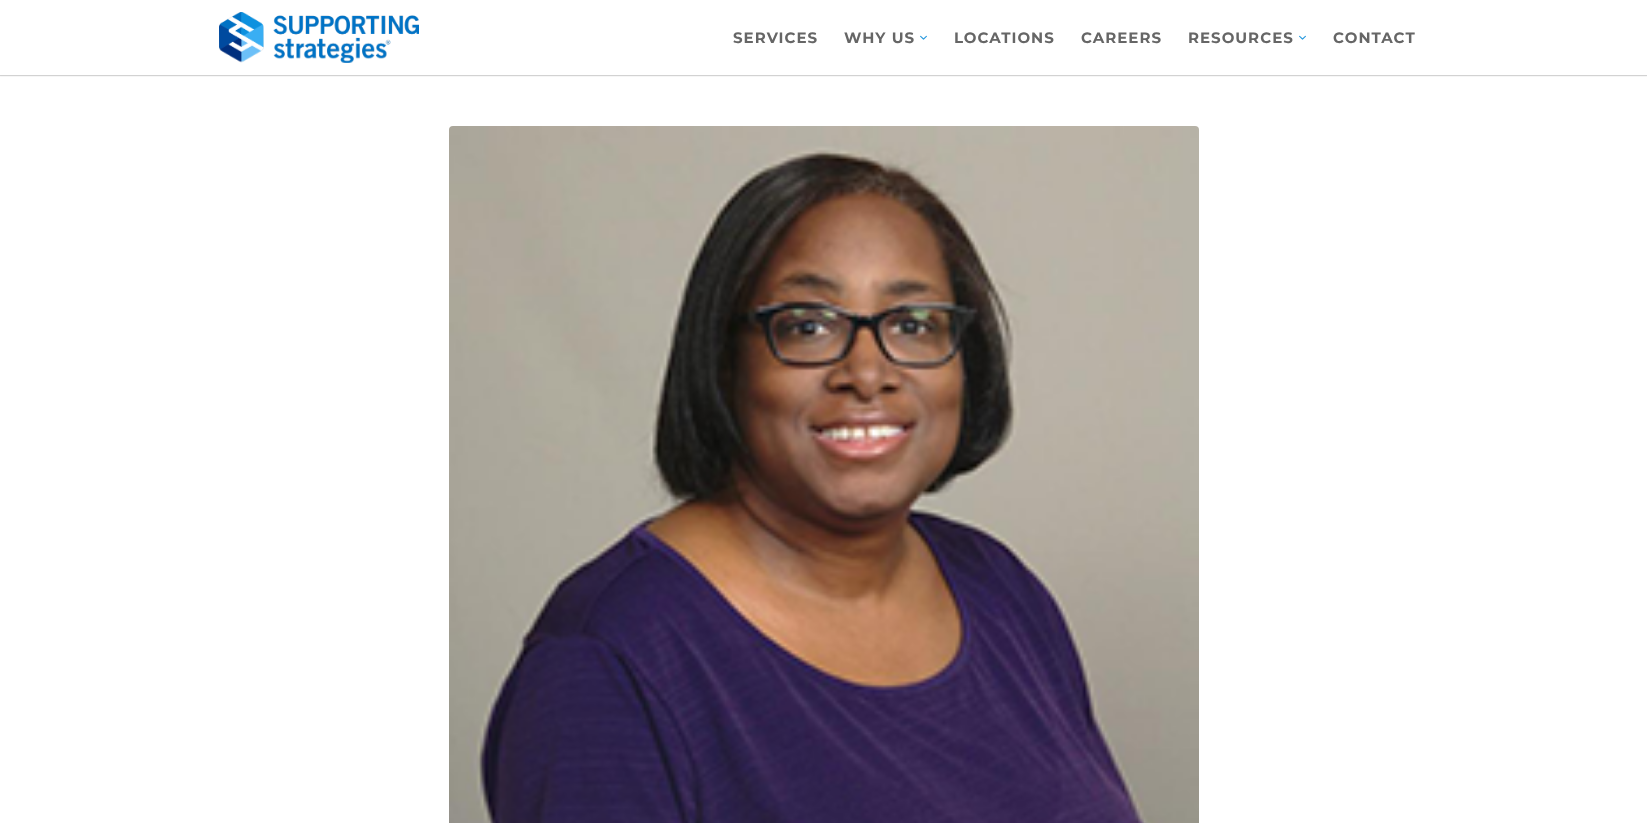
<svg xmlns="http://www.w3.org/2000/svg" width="1647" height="823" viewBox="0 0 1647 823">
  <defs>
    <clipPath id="clip1"><rect x="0" y="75" width="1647" height="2"/></clipPath>
    <filter id="blur1" x="-50%" y="-200%" width="200%" height="500%"><feGaussianBlur stdDeviation="1"/></filter>
  </defs>
  <rect width="100%" height="100%" fill="#ffffff"/>
  <rect x="0" y="75" width="1647" height="1" fill="#e1e1e1"/>
  <g clip-path="url(#clip1)">
    <rect x="-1" y="-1" width="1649" height="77" fill="#000000" fill-opacity="0.1" filter="url(#blur1)"/>
  </g>
  <image x="219" y="12" width="200" height="51" href="img1.png"/>
  <text x="733" y="43" font-family="Montserrat" font-size="15" font-weight="bold" letter-spacing="1" fill="#666666">SERVICES</text>
  <text x="844" y="43" font-family="Montserrat" font-size="15" font-weight="bold" letter-spacing="1" fill="#666666">WHY US</text>
  <image x="920" y="35" width="7" height="5" href="img2.png"/>
  <text x="954" y="43" font-family="Montserrat" font-size="15" font-weight="bold" letter-spacing="1" fill="#666666">LOCATIONS</text>
  <text x="1081" y="43" font-family="Montserrat" font-size="15" font-weight="bold" letter-spacing="1" fill="#666666">CAREERS</text>
  <text x="1188" y="43" font-family="Montserrat" font-size="15" font-weight="bold" letter-spacing="1" fill="#666666">RESOURCES</text>
  <image x="1299" y="35" width="7" height="5" href="img2.png"/>
  <text x="1333" y="43" font-family="Montserrat" font-size="15" font-weight="bold" letter-spacing="1" fill="#666666">CONTACT</text>
  <image x="449" y="126" width="750" height="697" href="img3.png"/>
</svg>
